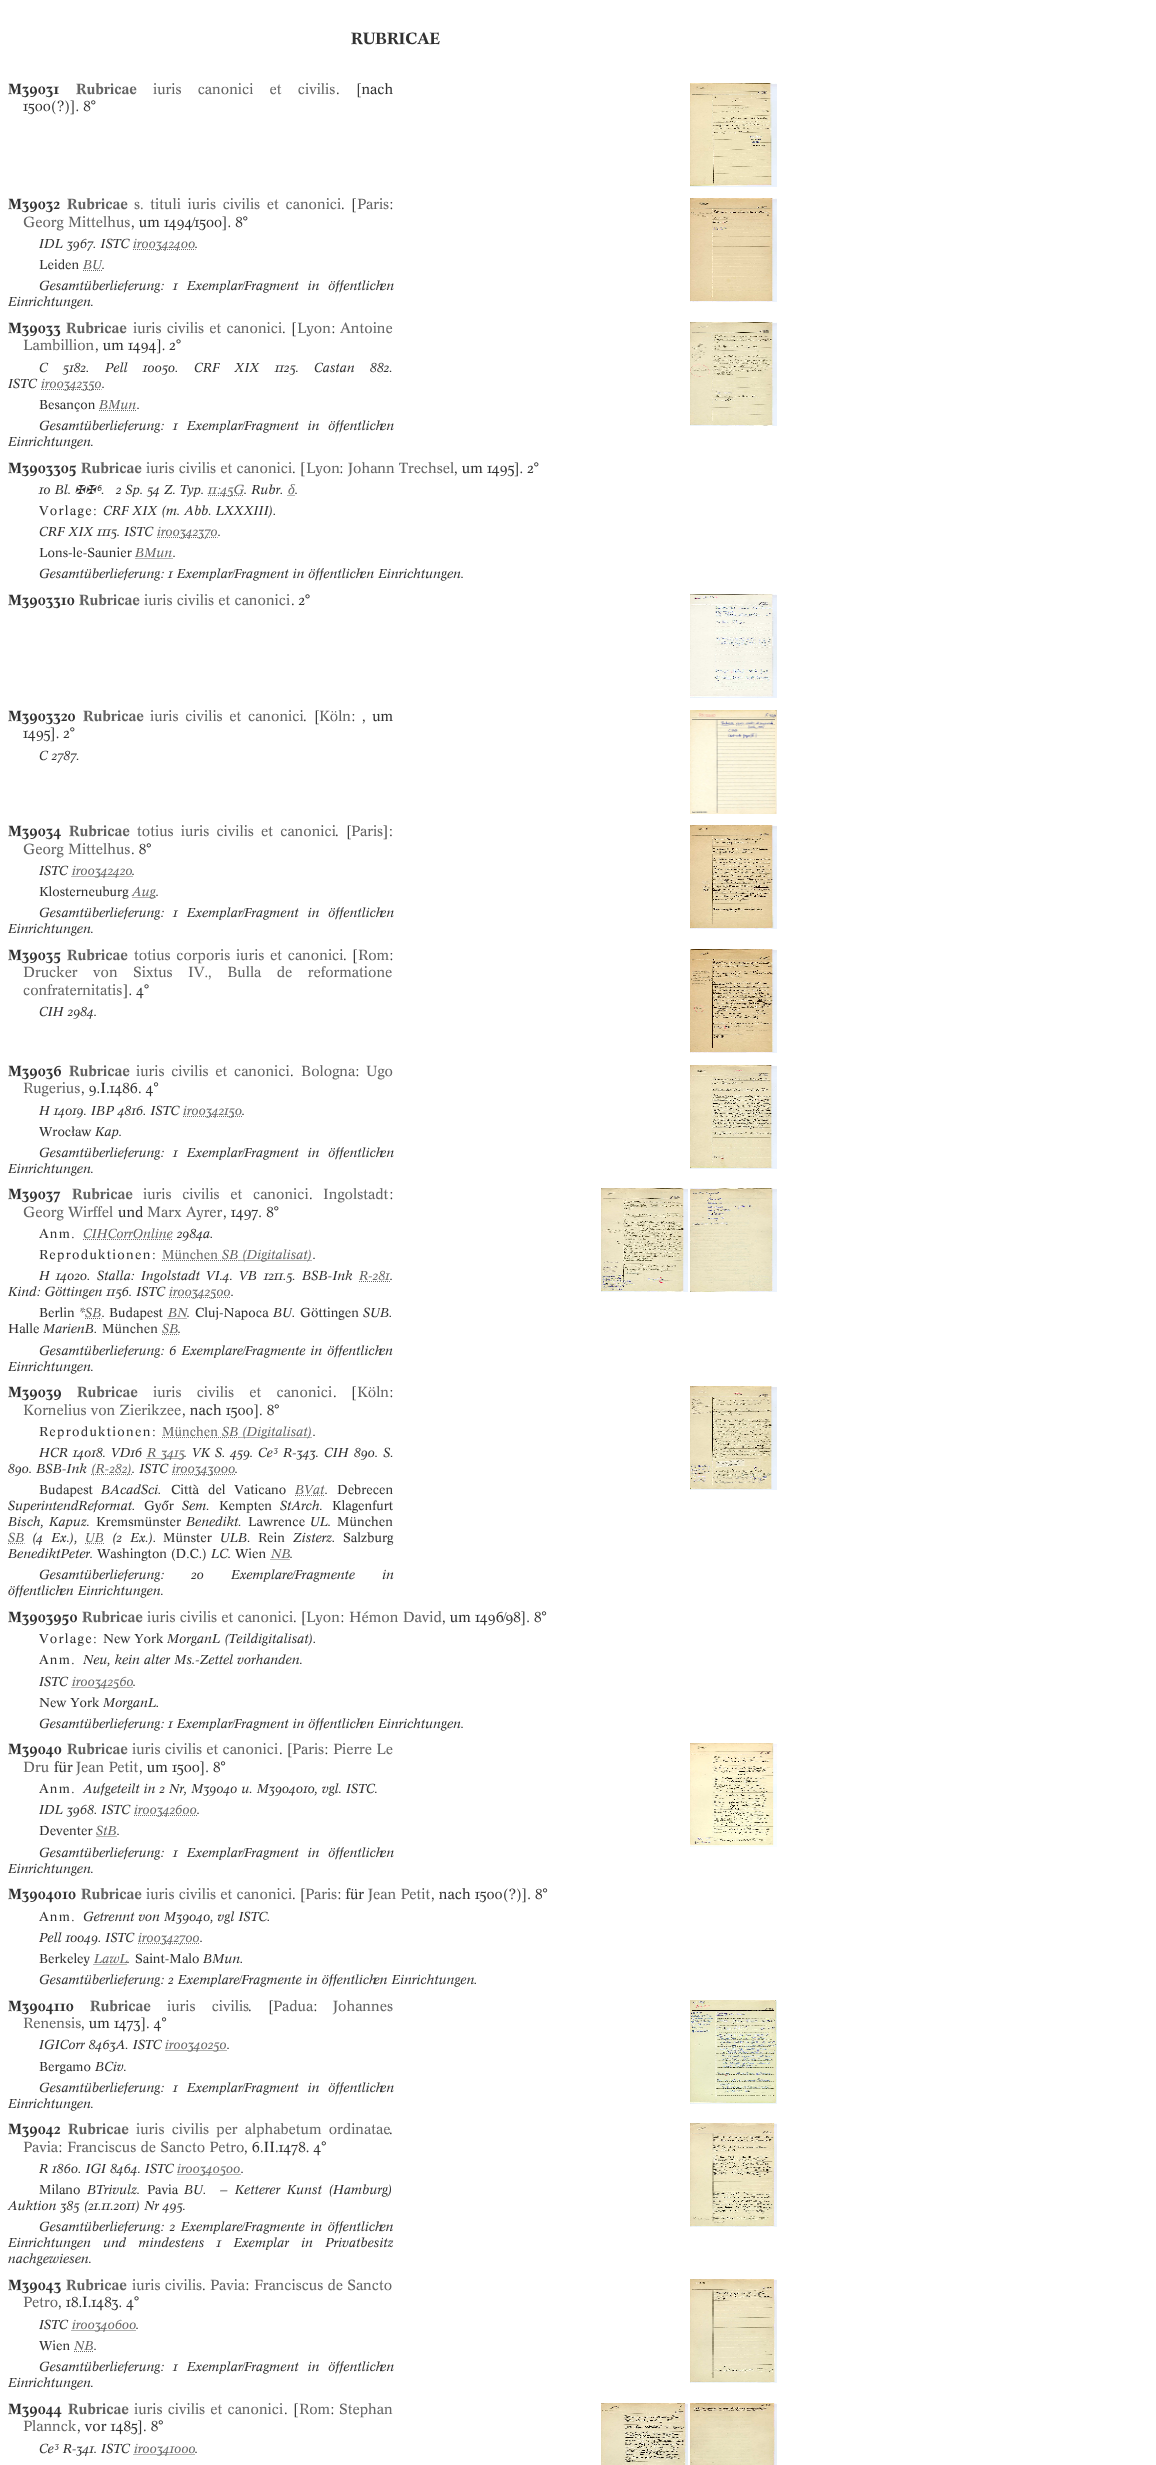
<svg xmlns="http://www.w3.org/2000/svg" width="1156" height="2465" viewBox="0 0 1156 2465">
  <rect width="100%" height="100%" fill="#ffffff"/>
  <text x="351" y="44" font-family="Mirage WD" font-size="16" font-weight="bold" fill="#333333">RUBRICAE</text>
  <text x="8" y="94" font-family="Mirage WD" font-size="14.4" font-weight="bold" fill="#333333">M39031</text>
  <text x="76" y="94" font-family="Mirage WD" font-size="14.4" font-weight="bold" fill="#666666">Rubricae</text>
  <text x="153" y="94" word-spacing="12" font-family="Mirage WD" font-size="14.4" fill="#666666">iuris canonici et civilis</text>
  <text x="336" y="94" font-family="Mirage WD" font-size="14.4" fill="#333333">.</text>
  <text x="356" y="94" font-family="Mirage WD" font-size="14.4" fill="#333333">[nach</text>
  <text x="23" y="111" font-family="Mirage WD" font-size="14.4" fill="#333333">1500(?)]. 8°</text>
  <image x="690" y="83" width="87" height="104" href="img1.png"/>
  <text x="8" y="209" font-family="Mirage WD" font-size="14.4" font-weight="bold" fill="#333333">M39032</text>
  <text x="67" y="209" font-family="Mirage WD" font-size="14.4" font-weight="bold" fill="#666666">Rubricae</text>
  <text x="134" y="209" word-spacing="2.5" font-family="Mirage WD" font-size="14.4" fill="#666666">s. tituli iuris civilis et canonici</text>
  <text x="341" y="209" font-family="Mirage WD" font-size="14.4" fill="#333333">.</text>
  <text x="351" y="209" font-family="Mirage WD" font-size="14.4" fill="#333333">[</text>
  <text x="357" y="209" font-family="Mirage WD" font-size="14.4" fill="#666666">Paris</text>
  <text x="389" y="209" font-family="Mirage WD" font-size="14.4" fill="#333333">:</text>
  <text x="23" y="227" font-family="Mirage WD" font-size="14.4" fill="#666666">Georg Mittelhus</text>
  <text x="131" y="227" font-family="Mirage WD" font-size="14.4" fill="#333333">, um 1494/1500]. 8°</text>
  <text x="39" y="248" font-family="Mirage WD" font-size="12.8" font-style="italic" fill="#333333">IDL 3967. ISTC</text>
  <path d="M133 249.5H195.5" fill="none" stroke="#666666" stroke-dasharray="1 1"/>
  <text x="133" y="248" font-family="Mirage WD" font-size="12.8" font-style="italic" fill="#666666">ir00342400</text>
  <text x="195" y="248" font-family="Mirage WD" font-size="12.8" font-style="italic" fill="#333333">.</text>
  <text x="39" y="269" font-family="Mirage WD" font-size="12.8" fill="#333333">Leiden</text>
  <text x="83" y="269" font-family="Mirage WD" font-size="12.8" font-style="italic" fill="#666666">BU</text>
  <path d="M83 270.5H102" fill="none" stroke="#666666" stroke-dasharray="1 1"/>
  <text x="102" y="269" font-family="Mirage WD" font-size="12.8" font-style="italic" fill="#333333">.</text>
  <text x="39" y="290" word-spacing="5" font-family="Mirage WD" font-size="12.8" font-style="italic" fill="#333333">Gesamtüberlieferung: 1 Exemplar/Fragment in öffentlichen</text>
  <text x="8" y="306" font-family="Mirage WD" font-size="12.8" font-style="italic" fill="#333333">Einrichtungen.</text>
  <image x="690" y="198" width="87" height="104" href="img2.png"/>
  <text x="8" y="333" font-family="Mirage WD" font-size="14.4" font-weight="bold" fill="#333333">M39033</text>
  <text x="66" y="333" font-family="Mirage WD" font-size="14.4" font-weight="bold" fill="#666666">Rubricae</text>
  <text x="133" y="333" word-spacing="1" font-family="Mirage WD" font-size="14.4" fill="#666666">iuris civilis et canonici</text>
  <text x="282" y="333" font-family="Mirage WD" font-size="14.4" fill="#333333">.</text>
  <text x="291" y="333" font-family="Mirage WD" font-size="14.4" fill="#333333">[</text>
  <text x="297" y="333" font-family="Mirage WD" font-size="14.4" fill="#666666">Lyon</text>
  <text x="331" y="333" font-family="Mirage WD" font-size="14.4" fill="#333333">:</text>
  <text x="340" y="333" font-family="Mirage WD" font-size="14.4" fill="#666666">Antoine</text>
  <text x="23" y="350" font-family="Mirage WD" font-size="14.4" fill="#666666">Lambillion</text>
  <text x="95" y="350" font-family="Mirage WD" font-size="14.4" fill="#333333">, um 1494]. 2°</text>
  <text x="39" y="372" font-family="Mirage WD" font-size="12.8" font-style="italic" fill="#333333">C</text>
  <text x="63" y="372" font-family="Mirage WD" font-size="12.8" font-style="italic" fill="#333333">5182.</text>
  <text x="105" y="372" font-family="Mirage WD" font-size="12.8" font-style="italic" fill="#333333">Pell</text>
  <text x="143" y="372" font-family="Mirage WD" font-size="12.8" font-style="italic" fill="#333333">10050.</text>
  <text x="194" y="372" word-spacing="11" font-family="Mirage WD" font-size="12.8" font-style="italic" fill="#333333">CRF XIX</text>
  <text x="275" y="372" font-family="Mirage WD" font-size="12.8" font-style="italic" fill="#333333">1125.</text>
  <text x="314" y="372" font-family="Mirage WD" font-size="12.8" font-style="italic" fill="#333333">Castan</text>
  <text x="370" y="372" font-family="Mirage WD" font-size="12.8" font-style="italic" fill="#333333">882.</text>
  <text x="8" y="388" font-family="Mirage WD" font-size="12.8" font-style="italic" fill="#333333">ISTC</text>
  <path d="M41 389.5H101.5" fill="none" stroke="#666666" stroke-dasharray="1 1"/>
  <text x="41" y="388" font-family="Mirage WD" font-size="12.8" font-style="italic" fill="#666666">ir00342350</text>
  <text x="102" y="388" font-family="Mirage WD" font-size="12.8" font-style="italic" fill="#333333">.</text>
  <text x="39" y="409" font-family="Mirage WD" font-size="12.8" fill="#333333">Besançon</text>
  <text x="99" y="409" font-family="Mirage WD" font-size="12.8" font-style="italic" fill="#666666">BMun</text>
  <path d="M99 410.5H136.5" fill="none" stroke="#666666" stroke-dasharray="1 1"/>
  <text x="137" y="409" font-family="Mirage WD" font-size="12.8" font-style="italic" fill="#333333">.</text>
  <text x="39" y="430" word-spacing="5" font-family="Mirage WD" font-size="12.8" font-style="italic" fill="#333333">Gesamtüberlieferung: 1 Exemplar/Fragment in öffentlichen</text>
  <text x="8" y="446" font-family="Mirage WD" font-size="12.8" font-style="italic" fill="#333333">Einrichtungen.</text>
  <image x="690" y="322" width="87" height="104" href="img3.png"/>
  <text x="8" y="473" font-family="Mirage WD" font-size="14.4" font-weight="bold" fill="#333333">M3903305</text>
  <text x="81" y="473" font-family="Mirage WD" font-size="14.4" font-weight="bold" fill="#666666">Rubricae</text>
  <text x="146" y="473" font-family="Mirage WD" font-size="14.4" fill="#666666">iuris civilis et canonici</text>
  <text x="292" y="473" font-family="Mirage WD" font-size="14.4" fill="#333333">. [</text>
  <text x="306" y="473" font-family="Mirage WD" font-size="14.4" fill="#666666">Lyon</text>
  <text x="339" y="473" font-family="Mirage WD" font-size="14.4" fill="#333333">:</text>
  <text x="348" y="473" font-family="Mirage WD" font-size="14.4" fill="#666666">Johann Trechsel</text>
  <text x="454" y="473" font-family="Mirage WD" font-size="14.4" fill="#333333">, um 1495]. 2°</text>
  <text x="39" y="494" font-family="Mirage WD" font-size="12.8" font-style="italic" fill="#333333">10 Bl. ✠✠⁶.</text>
  <text x="116" y="494" font-family="Mirage WD" font-size="12.8" font-style="italic" fill="#333333">2 Sp. 54 Z. Typ.</text>
  <path d="M208 495.5H244" fill="none" stroke="#666666" stroke-dasharray="1 1"/>
  <text x="208" y="494" font-family="Mirage WD" font-size="12.8" font-style="italic" fill="#666666">11:45G</text>
  <text x="244" y="494" font-family="Mirage WD" font-size="12.8" font-style="italic" fill="#333333">. Rubr.</text>
  <text x="288" y="494" font-family="Mirage WD" font-size="12.8" font-style="italic" fill="#666666">δ</text>
  <path d="M287.5 495.5H295" fill="none" stroke="#666666" stroke-dasharray="1 1"/>
  <text x="295" y="494" font-family="Mirage WD" font-size="12.8" font-style="italic" fill="#333333">.</text>
  <text x="39" y="515" font-family="Mirage WD" font-size="12.8" letter-spacing="1.25" fill="#333333">Vorlage:</text>
  <text x="103" y="515" font-family="Mirage WD" font-size="12.8" font-style="italic" fill="#333333">CRF XIX (m. Abb. LXXXIII).</text>
  <text x="39" y="536" font-family="Mirage WD" font-size="12.8" font-style="italic" fill="#333333">CRF XIX 1115. ISTC</text>
  <path d="M157 537.5H217.5" fill="none" stroke="#666666" stroke-dasharray="1 1"/>
  <text x="157" y="536" font-family="Mirage WD" font-size="12.8" font-style="italic" fill="#666666">ir00342370</text>
  <text x="218" y="536" font-family="Mirage WD" font-size="12.8" font-style="italic" fill="#333333">.</text>
  <text x="39" y="557" font-family="Mirage WD" font-size="12.8" fill="#333333">Lons-le-Saunier</text>
  <text x="135" y="557" font-family="Mirage WD" font-size="12.8" font-style="italic" fill="#666666">BMun</text>
  <path d="M135.5 558.5H173" fill="none" stroke="#666666" stroke-dasharray="1 1"/>
  <text x="173" y="557" font-family="Mirage WD" font-size="12.8" font-style="italic" fill="#333333">.</text>
  <text x="39" y="578" font-family="Mirage WD" font-size="12.8" font-style="italic" fill="#333333">Gesamtüberlieferung: 1 Exemplar/Fragment in öffentlichen Einrichtungen.</text>
  <text x="8" y="605" font-family="Mirage WD" font-size="14.4" font-weight="bold" fill="#333333">M3903310</text>
  <text x="79" y="605" font-family="Mirage WD" font-size="14.4" font-weight="bold" fill="#666666">Rubricae</text>
  <text x="144" y="605" font-family="Mirage WD" font-size="14.4" fill="#666666">iuris civilis et canonici</text>
  <text x="291" y="605" font-family="Mirage WD" font-size="14.4" fill="#333333">. 2°</text>
  <image x="690" y="594" width="87" height="104" href="img4.png"/>
  <text x="8" y="721" font-family="Mirage WD" font-size="14.4" font-weight="bold" fill="#333333">M3903320</text>
  <text x="83" y="721" font-family="Mirage WD" font-size="14.4" font-weight="bold" fill="#666666">Rubricae</text>
  <text x="150" y="721" word-spacing="2.5" font-family="Mirage WD" font-size="14.4" fill="#666666">iuris civilis et canonici</text>
  <text x="303" y="721" font-family="Mirage WD" font-size="14.4" fill="#333333">.</text>
  <text x="314" y="721" font-family="Mirage WD" font-size="14.4" fill="#333333">[</text>
  <text x="319" y="721" font-family="Mirage WD" font-size="14.4" fill="#666666">Köln</text>
  <text x="351" y="721" word-spacing="2.5" font-family="Mirage WD" font-size="14.4" fill="#333333">: , um</text>
  <text x="23" y="738" font-family="Mirage WD" font-size="14.4" fill="#333333">1495]. 2°</text>
  <text x="39" y="760" font-family="Mirage WD" font-size="12.8" font-style="italic" fill="#333333">C 2787.</text>
  <image x="690" y="710" width="87" height="104" href="img5.png"/>
  <text x="8" y="836" font-family="Mirage WD" font-size="14.4" font-weight="bold" fill="#333333">M39034</text>
  <text x="69" y="836" font-family="Mirage WD" font-size="14.4" font-weight="bold" fill="#666666">Rubricae</text>
  <text x="137" y="836" word-spacing="3" font-family="Mirage WD" font-size="14.4" fill="#666666">totius iuris civilis et canonici</text>
  <text x="335" y="836" font-family="Mirage WD" font-size="14.4" fill="#333333">.</text>
  <text x="346" y="836" font-family="Mirage WD" font-size="14.4" fill="#333333">[</text>
  <text x="351" y="836" font-family="Mirage WD" font-size="14.4" fill="#666666">Paris</text>
  <text x="383" y="836" font-family="Mirage WD" font-size="14.4" fill="#333333">]:</text>
  <text x="23" y="854" font-family="Mirage WD" font-size="14.4" fill="#666666">Georg Mittelhus</text>
  <text x="131" y="854" font-family="Mirage WD" font-size="14.4" fill="#333333">. 8°</text>
  <text x="39" y="875" font-family="Mirage WD" font-size="12.8" font-style="italic" fill="#333333">ISTC</text>
  <path d="M71.5 876.5H132.5" fill="none" stroke="#666666" stroke-dasharray="1 1"/>
  <text x="72" y="875" font-family="Mirage WD" font-size="12.8" font-style="italic" fill="#666666">ir00342420</text>
  <text x="132" y="875" font-family="Mirage WD" font-size="12.8" font-style="italic" fill="#333333">.</text>
  <text x="39" y="896" font-family="Mirage WD" font-size="12.8" fill="#333333">Klosterneuburg</text>
  <path d="M132.5 897.5H156" fill="none" stroke="#666666" stroke-dasharray="1 1"/>
  <text x="132" y="896" font-family="Mirage WD" font-size="12.8" font-style="italic" fill="#666666">Aug</text>
  <text x="156" y="896" font-family="Mirage WD" font-size="12.8" font-style="italic" fill="#333333">.</text>
  <text x="39" y="917" word-spacing="5" font-family="Mirage WD" font-size="12.8" font-style="italic" fill="#333333">Gesamtüberlieferung: 1 Exemplar/Fragment in öffentlichen</text>
  <text x="8" y="933" font-family="Mirage WD" font-size="12.8" font-style="italic" fill="#333333">Einrichtungen.</text>
  <image x="690" y="825" width="87" height="104" href="img6.png"/>
  <text x="8" y="960" font-family="Mirage WD" font-size="14.4" font-weight="bold" fill="#333333">M39035</text>
  <text x="67" y="960" font-family="Mirage WD" font-size="14.4" font-weight="bold" fill="#666666">Rubricae</text>
  <text x="134" y="960" word-spacing="1.5" font-family="Mirage WD" font-size="14.4" fill="#666666">totius corporis iuris et canonici</text>
  <text x="343" y="960" font-family="Mirage WD" font-size="14.4" fill="#333333">.</text>
  <text x="352" y="960" font-family="Mirage WD" font-size="14.4" fill="#333333">[</text>
  <text x="358" y="960" font-family="Mirage WD" font-size="14.4" fill="#666666">Rom</text>
  <text x="389" y="960" font-family="Mirage WD" font-size="14.4" fill="#333333">:</text>
  <text x="23" y="977" word-spacing="11.25" font-family="Mirage WD" font-size="14.4" fill="#666666">Drucker von Sixtus IV., Bulla de reformatione</text>
  <text x="23" y="995" font-family="Mirage WD" font-size="14.4" fill="#666666">confraternitatis</text>
  <text x="123" y="995" font-family="Mirage WD" font-size="14.4" fill="#333333">]. 4°</text>
  <text x="39" y="1016" font-family="Mirage WD" font-size="12.8" font-style="italic" fill="#333333">CIH 2984.</text>
  <image x="690" y="949" width="87" height="104" href="img7.png"/>
  <text x="8" y="1076" font-family="Mirage WD" font-size="14.4" font-weight="bold" fill="#333333">M39036</text>
  <text x="69" y="1076" font-family="Mirage WD" font-size="14.4" font-weight="bold" fill="#666666">Rubricae</text>
  <text x="136" y="1076" word-spacing="2.5" font-family="Mirage WD" font-size="14.4" fill="#666666">iuris civilis et canonici</text>
  <text x="290" y="1076" font-family="Mirage WD" font-size="14.4" fill="#333333">.</text>
  <text x="301" y="1076" font-family="Mirage WD" font-size="14.4" fill="#666666">Bologna</text>
  <text x="355" y="1076" font-family="Mirage WD" font-size="14.4" fill="#333333">:</text>
  <text x="366" y="1076" font-family="Mirage WD" font-size="14.4" fill="#666666">Ugo</text>
  <text x="23" y="1093" font-family="Mirage WD" font-size="14.4" fill="#666666">Rugerius</text>
  <text x="81" y="1093" font-family="Mirage WD" font-size="14.4" fill="#333333">, 9.I.1486. 4°</text>
  <text x="39" y="1115" font-family="Mirage WD" font-size="12.8" font-style="italic" fill="#333333">H 14019. IBP 4816. ISTC</text>
  <path d="M183 1116.5H242" fill="none" stroke="#666666" stroke-dasharray="1 1"/>
  <text x="183" y="1115" font-family="Mirage WD" font-size="12.8" font-style="italic" fill="#666666">ir00342150</text>
  <text x="242" y="1115" font-family="Mirage WD" font-size="12.8" font-style="italic" fill="#333333">.</text>
  <text x="39" y="1136" font-family="Mirage WD" font-size="12.8" fill="#333333">Wrocław</text>
  <text x="95" y="1136" font-family="Mirage WD" font-size="12.8" font-style="italic" fill="#333333">Kap.</text>
  <text x="39" y="1157" word-spacing="5" font-family="Mirage WD" font-size="12.8" font-style="italic" fill="#333333">Gesamtüberlieferung: 1 Exemplar/Fragment in öffentlichen</text>
  <text x="8" y="1173" font-family="Mirage WD" font-size="12.8" font-style="italic" fill="#333333">Einrichtungen.</text>
  <image x="690" y="1065" width="87" height="104" href="img8.png"/>
  <text x="8" y="1199" font-family="Mirage WD" font-size="14.4" font-weight="bold" fill="#333333">M39037</text>
  <text x="72" y="1199" font-family="Mirage WD" font-size="14.4" font-weight="bold" fill="#666666">Rubricae</text>
  <text x="143" y="1199" word-spacing="6.5" font-family="Mirage WD" font-size="14.4" fill="#666666">iuris civilis et canonici</text>
  <text x="309" y="1199" font-family="Mirage WD" font-size="14.4" fill="#333333">.</text>
  <text x="323" y="1199" font-family="Mirage WD" font-size="14.4" fill="#666666">Ingolstadt</text>
  <text x="389" y="1199" font-family="Mirage WD" font-size="14.4" fill="#333333">:</text>
  <text x="23" y="1217" font-family="Mirage WD" font-size="14.4" fill="#666666">Georg Wirffel</text>
  <text x="118" y="1217" font-family="Mirage WD" font-size="14.4" fill="#333333">und</text>
  <text x="147" y="1217" font-family="Mirage WD" font-size="14.4" fill="#666666">Marx Ayrer</text>
  <text x="223" y="1217" font-family="Mirage WD" font-size="14.4" fill="#333333">, 1497. 8°</text>
  <text x="39" y="1238" font-family="Mirage WD" font-size="12.8" letter-spacing="1.25" fill="#333333">Anm.</text>
  <text x="83" y="1238" font-family="Mirage WD" font-size="12.8" font-style="italic" fill="#666666">CIHCorrOnline</text>
  <path d="M83 1239.5H173" fill="none" stroke="#666666" stroke-dasharray="1 1"/>
  <text x="177" y="1238" font-family="Mirage WD" font-size="12.8" font-style="italic" fill="#333333">2984a.</text>
  <text x="39" y="1259" font-family="Mirage WD" font-size="12.8" letter-spacing="1.25" fill="#333333">Reproduktionen:</text>
  <text x="162" y="1259" font-family="Mirage WD" font-size="12.8" fill="#666666">München</text>
  <path d="M162 1260.5H218" fill="none" stroke="#666666" stroke-dasharray="1 1"/>
  <path d="M218 1260.5H219M220 1260.5H221" fill="none" stroke="#666666"/>
  <text x="222" y="1259" font-family="Mirage WD" font-size="12.8" font-style="italic" fill="#666666">SB</text>
  <path d="M222 1260.5H238.5" fill="none" stroke="#666666" stroke-dasharray="1 1"/>
  <path d="M238.5 1260.5H312.5" fill="none" stroke="#666666" stroke-dasharray="1 1"/>
  <text x="242" y="1259" font-family="Mirage WD" font-size="12.8" font-style="italic" fill="#666666">(Digitalisat)</text>
  <text x="313" y="1259" font-family="Mirage WD" font-size="12.8" font-style="italic" fill="#333333">.</text>
  <text x="39" y="1280" font-family="Mirage WD" font-size="12.8" font-style="italic" fill="#333333">H</text>
  <text x="56" y="1280" font-family="Mirage WD" font-size="12.8" font-style="italic" fill="#333333">14020.</text>
  <text x="97" y="1280" word-spacing="2.5" font-family="Mirage WD" font-size="12.8" font-style="italic" fill="#333333">Stalla: Ingolstadt</text>
  <text x="206" y="1280" font-family="Mirage WD" font-size="12.8" font-style="italic" fill="#333333">VI.4.</text>
  <text x="239" y="1280" font-family="Mirage WD" font-size="12.8" font-style="italic" fill="#333333">VB</text>
  <text x="264" y="1280" font-family="Mirage WD" font-size="12.8" font-style="italic" fill="#333333">1211.5.</text>
  <text x="302" y="1280" font-family="Mirage WD" font-size="12.8" font-style="italic" fill="#333333">BSB-Ink</text>
  <text x="359" y="1280" font-family="Mirage WD" font-size="12.8" font-style="italic" fill="#666666">R-281</text>
  <path d="M359 1281.5H390" fill="none" stroke="#666666" stroke-dasharray="1 1"/>
  <text x="390" y="1280" font-family="Mirage WD" font-size="12.8" font-style="italic" fill="#333333">.</text>
  <text x="8" y="1296" font-family="Mirage WD" font-size="12.8" font-style="italic" fill="#333333">Kind: Göttingen 1156. ISTC</text>
  <path d="M169 1297.5H231" fill="none" stroke="#666666" stroke-dasharray="1 1"/>
  <text x="169" y="1296" font-family="Mirage WD" font-size="12.8" font-style="italic" fill="#666666">ir00342500</text>
  <text x="231" y="1296" font-family="Mirage WD" font-size="12.8" font-style="italic" fill="#333333">.</text>
  <text x="39" y="1317" font-family="Mirage WD" font-size="12.8" fill="#333333">Berlin</text>
  <text x="79" y="1317" font-family="Mirage WD" font-size="12.8" font-style="italic" fill="#333333">*</text>
  <text x="85" y="1317" font-family="Mirage WD" font-size="12.8" font-style="italic" fill="#666666">SB</text>
  <path d="M85 1318.5H101.5" fill="none" stroke="#666666" stroke-dasharray="1 1"/>
  <text x="102" y="1317" font-family="Mirage WD" font-size="12.8" font-style="italic" fill="#333333">.</text>
  <text x="109" y="1317" font-family="Mirage WD" font-size="12.8" fill="#333333">Budapest</text>
  <text x="168" y="1317" font-family="Mirage WD" font-size="12.8" font-style="italic" fill="#666666">BN</text>
  <path d="M167.5 1318.5H187.5" fill="none" stroke="#666666" stroke-dasharray="1 1"/>
  <text x="187" y="1317" font-family="Mirage WD" font-size="12.8" font-style="italic" fill="#333333">.</text>
  <text x="195" y="1317" font-family="Mirage WD" font-size="12.8" fill="#333333">Cluj-Napoca</text>
  <text x="273" y="1317" font-family="Mirage WD" font-size="12.8" font-style="italic" fill="#333333">BU.</text>
  <text x="300" y="1317" font-family="Mirage WD" font-size="12.8" fill="#333333">Göttingen</text>
  <text x="363" y="1317" font-family="Mirage WD" font-size="12.8" font-style="italic" fill="#333333">SUB.</text>
  <text x="8" y="1333" font-family="Mirage WD" font-size="12.8" fill="#333333">Halle</text>
  <text x="43" y="1333" font-family="Mirage WD" font-size="12.8" font-style="italic" fill="#333333">MarienB.</text>
  <text x="102" y="1333" font-family="Mirage WD" font-size="12.8" fill="#333333">München</text>
  <text x="162" y="1333" font-family="Mirage WD" font-size="12.8" font-style="italic" fill="#666666">SB</text>
  <path d="M162 1334.5H178.5" fill="none" stroke="#666666" stroke-dasharray="1 1"/>
  <text x="178" y="1333" font-family="Mirage WD" font-size="12.8" font-style="italic" fill="#333333">.</text>
  <text x="39" y="1355" word-spacing="1" font-family="Mirage WD" font-size="12.8" font-style="italic" fill="#333333">Gesamtüberlieferung: 6 Exemplare/Fragmente in öffentlichen</text>
  <text x="8" y="1371" font-family="Mirage WD" font-size="12.8" font-style="italic" fill="#333333">Einrichtungen.</text>
  <image x="601" y="1188" width="87" height="104" href="img9.png"/>
  <image x="690" y="1188" width="87" height="104" href="img10.png"/>
  <text x="8" y="1397" font-family="Mirage WD" font-size="14.4" font-weight="bold" fill="#333333">M39039</text>
  <text x="77" y="1397" font-family="Mirage WD" font-size="14.4" font-weight="bold" fill="#666666">Rubricae</text>
  <text x="153" y="1397" word-spacing="11" font-family="Mirage WD" font-size="14.4" fill="#666666">iuris civilis et canonici</text>
  <text x="333" y="1397" font-family="Mirage WD" font-size="14.4" fill="#333333">.</text>
  <text x="351" y="1397" font-family="Mirage WD" font-size="14.4" fill="#333333">[</text>
  <text x="357" y="1397" font-family="Mirage WD" font-size="14.4" fill="#666666">Köln</text>
  <text x="389" y="1397" font-family="Mirage WD" font-size="14.4" fill="#333333">:</text>
  <text x="23" y="1415" font-family="Mirage WD" font-size="14.4" fill="#666666">Kornelius von Zierikzee</text>
  <text x="182" y="1415" font-family="Mirage WD" font-size="14.4" fill="#333333">, nach 1500]. 8°</text>
  <text x="39" y="1436" font-family="Mirage WD" font-size="12.8" letter-spacing="1.25" fill="#333333">Reproduktionen:</text>
  <text x="162" y="1436" font-family="Mirage WD" font-size="12.8" fill="#666666">München</text>
  <path d="M162 1437.5H218" fill="none" stroke="#666666" stroke-dasharray="1 1"/>
  <path d="M218 1437.5H219M220 1437.5H221" fill="none" stroke="#666666"/>
  <text x="222" y="1436" font-family="Mirage WD" font-size="12.8" font-style="italic" fill="#666666">SB</text>
  <path d="M222 1437.5H238.5" fill="none" stroke="#666666" stroke-dasharray="1 1"/>
  <path d="M238.5 1437.5H312.5" fill="none" stroke="#666666" stroke-dasharray="1 1"/>
  <text x="242" y="1436" font-family="Mirage WD" font-size="12.8" font-style="italic" fill="#666666">(Digitalisat)</text>
  <text x="313" y="1436" font-family="Mirage WD" font-size="12.8" font-style="italic" fill="#333333">.</text>
  <text x="39" y="1457" font-family="Mirage WD" font-size="12.8" font-style="italic" fill="#333333">HCR</text>
  <text x="73" y="1457" font-family="Mirage WD" font-size="12.8" font-style="italic" fill="#333333">14018.</text>
  <text x="111" y="1457" font-family="Mirage WD" font-size="12.8" font-style="italic" fill="#333333">VD16</text>
  <path d="M146.5 1458.5H184" fill="none" stroke="#666666" stroke-dasharray="1 1"/>
  <text x="147" y="1457" word-spacing="1" font-family="Mirage WD" font-size="12.8" font-style="italic" fill="#666666">R 3415</text>
  <text x="184" y="1457" font-family="Mirage WD" font-size="12.8" font-style="italic" fill="#333333">.</text>
  <text x="192" y="1457" font-family="Mirage WD" font-size="12.8" font-style="italic" fill="#333333">VK</text>
  <text x="215" y="1457" word-spacing="1" font-family="Mirage WD" font-size="12.8" font-style="italic" fill="#333333">S. 459.</text>
  <text x="258" y="1457" font-family="Mirage WD" font-size="12.8" font-style="italic" fill="#333333">Ce³</text>
  <text x="283" y="1457" font-family="Mirage WD" font-size="12.8" font-style="italic" fill="#333333">R-343.</text>
  <text x="324" y="1457" font-family="Mirage WD" font-size="12.8" font-style="italic" fill="#333333">CIH</text>
  <text x="354" y="1457" word-spacing="1" font-family="Mirage WD" font-size="12.8" font-style="italic" fill="#333333">890. S.</text>
  <text x="8" y="1473" font-family="Mirage WD" font-size="12.8" font-style="italic" fill="#333333">890. BSB-Ink</text>
  <path d="M91 1474.5H132" fill="none" stroke="#666666" stroke-dasharray="1 1"/>
  <text x="91" y="1473" font-family="Mirage WD" font-size="12.8" font-style="italic" fill="#666666">(R-282)</text>
  <text x="132" y="1473" font-family="Mirage WD" font-size="12.8" font-style="italic" fill="#333333">. ISTC</text>
  <path d="M172 1474.5H235.5" fill="none" stroke="#666666" stroke-dasharray="1 1"/>
  <text x="172" y="1473" font-family="Mirage WD" font-size="12.8" font-style="italic" fill="#666666">ir00343000</text>
  <text x="235" y="1473" font-family="Mirage WD" font-size="12.8" font-style="italic" fill="#333333">.</text>
  <text x="39" y="1494" font-family="Mirage WD" font-size="12.8" fill="#333333">Budapest</text>
  <text x="101" y="1494" font-family="Mirage WD" font-size="12.8" font-style="italic" fill="#333333">BAcadSci.</text>
  <text x="171" y="1494" word-spacing="5" font-family="Mirage WD" font-size="12.8" fill="#333333">Città del Vaticano</text>
  <text x="295" y="1494" font-family="Mirage WD" font-size="12.8" font-style="italic" fill="#666666">BVat</text>
  <path d="M295 1495.5H324.5" fill="none" stroke="#666666" stroke-dasharray="1 1"/>
  <text x="325" y="1494" font-family="Mirage WD" font-size="12.8" font-style="italic" fill="#333333">.</text>
  <text x="337" y="1494" font-family="Mirage WD" font-size="12.8" fill="#333333">Debrecen</text>
  <text x="8" y="1510" font-family="Mirage WD" font-size="12.8" font-style="italic" fill="#333333">SuperintendReformat.</text>
  <text x="144" y="1510" font-family="Mirage WD" font-size="12.8" fill="#333333">Győr</text>
  <text x="182" y="1510" font-family="Mirage WD" font-size="12.8" font-style="italic" fill="#333333">Sem.</text>
  <text x="219" y="1510" font-family="Mirage WD" font-size="12.8" fill="#333333">Kempten</text>
  <text x="280" y="1510" font-family="Mirage WD" font-size="12.8" font-style="italic" fill="#333333">StArch.</text>
  <text x="332" y="1510" font-family="Mirage WD" font-size="12.8" fill="#333333">Klagenfurt</text>
  <text x="8" y="1526" word-spacing="1" font-family="Mirage WD" font-size="12.8" font-style="italic" fill="#333333">Bisch, Kapuz.</text>
  <text x="96" y="1526" font-family="Mirage WD" font-size="12.8" fill="#333333">Kremsmünster</text>
  <text x="186" y="1526" font-family="Mirage WD" font-size="12.8" font-style="italic" fill="#333333">Benedikt.</text>
  <text x="248" y="1526" font-family="Mirage WD" font-size="12.8" fill="#333333">Lawrence</text>
  <text x="310" y="1526" font-family="Mirage WD" font-size="12.8" font-style="italic" fill="#333333">UL.</text>
  <text x="337" y="1526" font-family="Mirage WD" font-size="12.8" fill="#333333">München</text>
  <text x="8" y="1542" font-family="Mirage WD" font-size="12.8" font-style="italic" fill="#666666">SB</text>
  <path d="M8 1543.5H24.5" fill="none" stroke="#666666" stroke-dasharray="1 1"/>
  <text x="32" y="1542" word-spacing="4" font-family="Mirage WD" font-size="12.8" font-style="italic" fill="#333333">(4 Ex.),</text>
  <text x="85" y="1542" font-family="Mirage WD" font-size="12.8" font-style="italic" fill="#666666">UB</text>
  <path d="M85 1543.5H104" fill="none" stroke="#666666" stroke-dasharray="1 1"/>
  <text x="112" y="1542" word-spacing="4" font-family="Mirage WD" font-size="12.8" font-style="italic" fill="#333333">(2 Ex.).</text>
  <text x="163" y="1542" font-family="Mirage WD" font-size="12.8" fill="#333333">Münster</text>
  <text x="220" y="1542" font-family="Mirage WD" font-size="12.8" font-style="italic" fill="#333333">ULB.</text>
  <text x="258" y="1542" font-family="Mirage WD" font-size="12.8" fill="#333333">Rein</text>
  <text x="293" y="1542" font-family="Mirage WD" font-size="12.8" font-style="italic" fill="#333333">Zisterz.</text>
  <text x="343" y="1542" font-family="Mirage WD" font-size="12.8" fill="#333333">Salzburg</text>
  <text x="8" y="1558" font-family="Mirage WD" font-size="12.8" font-style="italic" fill="#333333">BenediktPeter.</text>
  <text x="97" y="1558" font-family="Mirage WD" font-size="12.8" fill="#333333">Washington (D.C.)</text>
  <text x="211" y="1558" font-family="Mirage WD" font-size="12.8" font-style="italic" fill="#333333">LC.</text>
  <text x="235" y="1558" font-family="Mirage WD" font-size="12.8" fill="#333333">Wien</text>
  <text x="271" y="1558" font-family="Mirage WD" font-size="12.8" font-style="italic" fill="#666666">NB</text>
  <path d="M270.5 1559.5H290.5" fill="none" stroke="#666666" stroke-dasharray="1 1"/>
  <text x="290" y="1558" font-family="Mirage WD" font-size="12.8" font-style="italic" fill="#333333">.</text>
  <text x="39" y="1579" word-spacing="23" font-family="Mirage WD" font-size="12.8" font-style="italic" fill="#333333">Gesamtüberlieferung: 20 Exemplare/Fragmente in</text>
  <text x="8" y="1595" font-family="Mirage WD" font-size="12.8" font-style="italic" fill="#333333">öffentlichen Einrichtungen.</text>
  <image x="690" y="1386" width="87" height="104" href="img11.png"/>
  <text x="8" y="1622" font-family="Mirage WD" font-size="14.4" font-weight="bold" fill="#333333">M3903950</text>
  <text x="82" y="1622" font-family="Mirage WD" font-size="14.4" font-weight="bold" fill="#666666">Rubricae</text>
  <text x="147" y="1622" font-family="Mirage WD" font-size="14.4" fill="#666666">iuris civilis et canonici</text>
  <text x="293" y="1622" font-family="Mirage WD" font-size="14.4" fill="#333333">. [</text>
  <text x="306" y="1622" font-family="Mirage WD" font-size="14.4" fill="#666666">Lyon</text>
  <text x="340" y="1622" font-family="Mirage WD" font-size="14.4" fill="#333333">:</text>
  <text x="349" y="1622" font-family="Mirage WD" font-size="14.4" fill="#666666">Hémon David</text>
  <text x="442" y="1622" font-family="Mirage WD" font-size="14.4" fill="#333333">, um 1496/98]. 8°</text>
  <text x="39" y="1643" font-family="Mirage WD" font-size="12.8" letter-spacing="1.25" fill="#333333">Vorlage:</text>
  <text x="103" y="1643" font-family="Mirage WD" font-size="12.8" fill="#333333">New York</text>
  <text x="167" y="1643" font-family="Mirage WD" font-size="12.8" font-style="italic" fill="#333333">MorganL (Teildigitalisat).</text>
  <text x="39" y="1664" font-family="Mirage WD" font-size="12.8" letter-spacing="1.25" fill="#333333">Anm.</text>
  <text x="83" y="1664" font-family="Mirage WD" font-size="12.8" font-style="italic" fill="#333333">Neu, kein alter Ms.-Zettel vorhanden.</text>
  <text x="39" y="1686" font-family="Mirage WD" font-size="12.8" font-style="italic" fill="#333333">ISTC</text>
  <path d="M71.5 1687.5H133.5" fill="none" stroke="#666666" stroke-dasharray="1 1"/>
  <text x="72" y="1686" font-family="Mirage WD" font-size="12.8" font-style="italic" fill="#666666">ir00342560</text>
  <text x="133" y="1686" font-family="Mirage WD" font-size="12.8" font-style="italic" fill="#333333">.</text>
  <text x="39" y="1707" font-family="Mirage WD" font-size="12.8" fill="#333333">New York</text>
  <text x="103" y="1707" font-family="Mirage WD" font-size="12.8" font-style="italic" fill="#333333">MorganL.</text>
  <text x="39" y="1728" font-family="Mirage WD" font-size="12.8" font-style="italic" fill="#333333">Gesamtüberlieferung: 1 Exemplar/Fragment in öffentlichen Einrichtungen.</text>
  <text x="8" y="1754" font-family="Mirage WD" font-size="14.4" font-weight="bold" fill="#333333">M39040</text>
  <text x="67" y="1754" font-family="Mirage WD" font-size="14.4" font-weight="bold" fill="#666666">Rubricae</text>
  <text x="132" y="1754" font-family="Mirage WD" font-size="14.4" fill="#666666">iuris civilis et canonici</text>
  <text x="279" y="1754" font-family="Mirage WD" font-size="14.4" fill="#333333">. [</text>
  <text x="292" y="1754" font-family="Mirage WD" font-size="14.4" fill="#666666">Paris</text>
  <text x="324" y="1754" font-family="Mirage WD" font-size="14.4" fill="#333333">:</text>
  <text x="333" y="1754" font-family="Mirage WD" font-size="14.4" fill="#666666">Pierre Le</text>
  <text x="23" y="1772" font-family="Mirage WD" font-size="14.4" fill="#666666">Dru</text>
  <text x="54" y="1772" font-family="Mirage WD" font-size="14.4" fill="#333333">für</text>
  <text x="76" y="1772" font-family="Mirage WD" font-size="14.4" fill="#666666">Jean Petit</text>
  <text x="139" y="1772" font-family="Mirage WD" font-size="14.4" fill="#333333">, um 1500]. 8°</text>
  <text x="39" y="1793" font-family="Mirage WD" font-size="12.8" letter-spacing="1.25" fill="#333333">Anm.</text>
  <text x="83" y="1793" font-family="Mirage WD" font-size="12.8" font-style="italic" fill="#333333">Aufgeteilt in 2 Nr, M39040 u. M3904010, vgl. ISTC.</text>
  <text x="39" y="1814" font-family="Mirage WD" font-size="12.8" font-style="italic" fill="#333333">IDL 3968. ISTC</text>
  <path d="M134 1815.5H197" fill="none" stroke="#666666" stroke-dasharray="1 1"/>
  <text x="134" y="1814" font-family="Mirage WD" font-size="12.8" font-style="italic" fill="#666666">ir00342600</text>
  <text x="197" y="1814" font-family="Mirage WD" font-size="12.8" font-style="italic" fill="#333333">.</text>
  <text x="39" y="1835" font-family="Mirage WD" font-size="12.8" fill="#333333">Deventer</text>
  <text x="96" y="1835" font-family="Mirage WD" font-size="12.8" font-style="italic" fill="#666666">StB</text>
  <path d="M96.5 1836.5H117" fill="none" stroke="#666666" stroke-dasharray="1 1"/>
  <text x="117" y="1835" font-family="Mirage WD" font-size="12.8" font-style="italic" fill="#333333">.</text>
  <text x="39" y="1857" word-spacing="5" font-family="Mirage WD" font-size="12.8" font-style="italic" fill="#333333">Gesamtüberlieferung: 1 Exemplar/Fragment in öffentlichen</text>
  <text x="8" y="1873" font-family="Mirage WD" font-size="12.8" font-style="italic" fill="#333333">Einrichtungen.</text>
  <image x="690" y="1743" width="87" height="104" href="img12.png"/>
  <text x="8" y="1899" font-family="Mirage WD" font-size="14.4" font-weight="bold" fill="#333333">M3904010</text>
  <text x="81" y="1899" font-family="Mirage WD" font-size="14.4" font-weight="bold" fill="#666666">Rubricae</text>
  <text x="146" y="1899" font-family="Mirage WD" font-size="14.4" fill="#666666">iuris civilis et canonici</text>
  <text x="292" y="1899" font-family="Mirage WD" font-size="14.4" fill="#333333">. [</text>
  <text x="305" y="1899" font-family="Mirage WD" font-size="14.4" fill="#666666">Paris</text>
  <text x="337" y="1899" font-family="Mirage WD" font-size="14.4" fill="#333333">: für</text>
  <text x="368" y="1899" font-family="Mirage WD" font-size="14.4" fill="#666666">Jean Petit</text>
  <text x="431" y="1899" font-family="Mirage WD" font-size="14.4" fill="#333333">, nach 1500(?)]. 8°</text>
  <text x="39" y="1921" font-family="Mirage WD" font-size="12.8" letter-spacing="1.25" fill="#333333">Anm.</text>
  <text x="83" y="1921" font-family="Mirage WD" font-size="12.8" font-style="italic" fill="#333333">Getrennt von M39040, vgl ISTC.</text>
  <text x="39" y="1942" font-family="Mirage WD" font-size="12.8" font-style="italic" fill="#333333">Pell 10049. ISTC</text>
  <path d="M138 1943.5H199.5" fill="none" stroke="#666666" stroke-dasharray="1 1"/>
  <text x="138" y="1942" font-family="Mirage WD" font-size="12.8" font-style="italic" fill="#666666">ir00342700</text>
  <text x="200" y="1942" font-family="Mirage WD" font-size="12.8" font-style="italic" fill="#333333">.</text>
  <text x="39" y="1963" font-family="Mirage WD" font-size="12.8" fill="#333333">Berkeley</text>
  <text x="94" y="1963" font-family="Mirage WD" font-size="12.8" font-style="italic" fill="#666666">LawL</text>
  <path d="M93.5 1964.5H127.5" fill="none" stroke="#666666" stroke-dasharray="1 1"/>
  <text x="127" y="1963" font-family="Mirage WD" font-size="12.8" font-style="italic" fill="#333333">.</text>
  <text x="135" y="1963" font-family="Mirage WD" font-size="12.8" fill="#333333">Saint-Malo</text>
  <text x="203" y="1963" font-family="Mirage WD" font-size="12.8" font-style="italic" fill="#333333">BMun.</text>
  <text x="39" y="1984" font-family="Mirage WD" font-size="12.8" font-style="italic" fill="#333333">Gesamtüberlieferung: 2 Exemplare/Fragmente in öffentlichen Einrichtungen.</text>
  <text x="8" y="2011" font-family="Mirage WD" font-size="14.4" font-weight="bold" fill="#333333">M3904110</text>
  <text x="90" y="2011" font-family="Mirage WD" font-size="14.4" font-weight="bold" fill="#666666">Rubricae</text>
  <text x="167" y="2011" word-spacing="12" font-family="Mirage WD" font-size="14.4" fill="#666666">iuris civilis</text>
  <text x="248" y="2011" font-family="Mirage WD" font-size="14.4" fill="#333333">.</text>
  <text x="268" y="2011" font-family="Mirage WD" font-size="14.4" fill="#333333">[</text>
  <text x="273" y="2011" font-family="Mirage WD" font-size="14.4" fill="#666666">Padua</text>
  <text x="313" y="2011" font-family="Mirage WD" font-size="14.4" fill="#333333">:</text>
  <text x="333" y="2011" font-family="Mirage WD" font-size="14.4" fill="#666666">Johannes</text>
  <text x="23" y="2028" font-family="Mirage WD" font-size="14.4" fill="#666666">Renensis</text>
  <text x="81" y="2028" font-family="Mirage WD" font-size="14.4" fill="#333333">, um 1473]. 4°</text>
  <text x="39" y="2049" font-family="Mirage WD" font-size="12.8" font-style="italic" fill="#333333">IGICorr 8463A. ISTC</text>
  <path d="M165.5 2050.5H227" fill="none" stroke="#666666" stroke-dasharray="1 1"/>
  <text x="165" y="2049" font-family="Mirage WD" font-size="12.8" font-style="italic" fill="#666666">ir00340250</text>
  <text x="227" y="2049" font-family="Mirage WD" font-size="12.8" font-style="italic" fill="#333333">.</text>
  <text x="39" y="2071" font-family="Mirage WD" font-size="12.8" fill="#333333">Bergamo</text>
  <text x="95" y="2071" font-family="Mirage WD" font-size="12.8" font-style="italic" fill="#333333">BCiv.</text>
  <text x="39" y="2092" word-spacing="5" font-family="Mirage WD" font-size="12.8" font-style="italic" fill="#333333">Gesamtüberlieferung: 1 Exemplar/Fragment in öffentlichen</text>
  <text x="8" y="2108" font-family="Mirage WD" font-size="12.8" font-style="italic" fill="#333333">Einrichtungen.</text>
  <image x="690" y="2000" width="87" height="104" href="img13.png"/>
  <text x="8" y="2134" font-family="Mirage WD" font-size="14.4" font-weight="bold" fill="#333333">M39042</text>
  <text x="68" y="2134" font-family="Mirage WD" font-size="14.4" font-weight="bold" fill="#666666">Rubricae</text>
  <text x="136" y="2134" word-spacing="3" font-family="Mirage WD" font-size="14.4" fill="#666666">iuris civilis per alphabetum ordinatae</text>
  <text x="389" y="2134" font-family="Mirage WD" font-size="14.4" fill="#333333">.</text>
  <text x="23" y="2152" font-family="Mirage WD" font-size="14.4" fill="#666666">Pavia</text>
  <text x="58" y="2152" font-family="Mirage WD" font-size="14.4" fill="#333333">:</text>
  <text x="67" y="2152" font-family="Mirage WD" font-size="14.4" fill="#666666">Franciscus de Sancto Petro</text>
  <text x="244" y="2152" font-family="Mirage WD" font-size="14.4" fill="#333333">, 6.II.1478. 4°</text>
  <text x="39" y="2173" font-family="Mirage WD" font-size="12.8" font-style="italic" fill="#333333">R 1860. IGI 8464. ISTC</text>
  <path d="M177.5 2174.5H241" fill="none" stroke="#666666" stroke-dasharray="1 1"/>
  <text x="177" y="2173" font-family="Mirage WD" font-size="12.8" font-style="italic" fill="#666666">ir00340500</text>
  <text x="241" y="2173" font-family="Mirage WD" font-size="12.8" font-style="italic" fill="#333333">.</text>
  <text x="39" y="2194" font-family="Mirage WD" font-size="12.8" fill="#333333">Milano</text>
  <text x="87" y="2194" font-family="Mirage WD" font-size="12.8" font-style="italic" fill="#333333">BTrivulz.</text>
  <text x="147" y="2194" font-family="Mirage WD" font-size="12.8" fill="#333333">Pavia</text>
  <text x="184" y="2194" word-spacing="2.5" font-family="Mirage WD" font-size="12.8" font-style="italic" fill="#333333" xml:space="preserve">BU.  — Ketterer Kunst (Hamburg)</text>
  <text x="8" y="2210" font-family="Mirage WD" font-size="12.8" font-style="italic" fill="#333333">Auktion 385 (21.11.2011) Nr 495.</text>
  <text x="39" y="2231" word-spacing="1.5" font-family="Mirage WD" font-size="12.8" font-style="italic" fill="#333333">Gesamtüberlieferung: 2 Exemplare/Fragmente in öffentlichen</text>
  <text x="8" y="2247" word-spacing="8.25" font-family="Mirage WD" font-size="12.8" font-style="italic" fill="#333333">Einrichtungen und mindestens 1 Exemplar in Privatbesitz</text>
  <text x="8" y="2263" font-family="Mirage WD" font-size="12.8" font-style="italic" fill="#333333">nachgewiesen.</text>
  <image x="690" y="2123" width="87" height="104" href="img14.png"/>
  <text x="8" y="2290" font-family="Mirage WD" font-size="14.4" font-weight="bold" fill="#333333">M39043</text>
  <text x="66" y="2290" font-family="Mirage WD" font-size="14.4" font-weight="bold" fill="#666666">Rubricae</text>
  <text x="132" y="2290" font-family="Mirage WD" font-size="14.4" fill="#666666">iuris civilis</text>
  <text x="202" y="2290" font-family="Mirage WD" font-size="14.4" fill="#333333">.</text>
  <text x="210" y="2290" font-family="Mirage WD" font-size="14.4" fill="#666666">Pavia</text>
  <text x="245" y="2290" font-family="Mirage WD" font-size="14.4" fill="#333333">:</text>
  <text x="254" y="2290" font-family="Mirage WD" font-size="14.4" fill="#666666">Franciscus de Sancto</text>
  <text x="23" y="2307" font-family="Mirage WD" font-size="14.4" fill="#666666">Petro</text>
  <text x="58" y="2307" font-family="Mirage WD" font-size="14.4" fill="#333333">, 18.I.1483. 4°</text>
  <text x="39" y="2329" font-family="Mirage WD" font-size="12.8" font-style="italic" fill="#333333">ISTC</text>
  <path d="M71.5 2330.5H136" fill="none" stroke="#666666" stroke-dasharray="1 1"/>
  <text x="72" y="2329" font-family="Mirage WD" font-size="12.8" font-style="italic" fill="#666666">ir00340600</text>
  <text x="136" y="2329" font-family="Mirage WD" font-size="12.8" font-style="italic" fill="#333333">.</text>
  <text x="39" y="2350" font-family="Mirage WD" font-size="12.8" fill="#333333">Wien</text>
  <text x="74" y="2350" font-family="Mirage WD" font-size="12.8" font-style="italic" fill="#666666">NB</text>
  <path d="M74 2351.5H93.5" fill="none" stroke="#666666" stroke-dasharray="1 1"/>
  <text x="94" y="2350" font-family="Mirage WD" font-size="12.8" font-style="italic" fill="#333333">.</text>
  <text x="39" y="2371" word-spacing="5" font-family="Mirage WD" font-size="12.8" font-style="italic" fill="#333333">Gesamtüberlieferung: 1 Exemplar/Fragment in öffentlichen</text>
  <text x="8" y="2387" font-family="Mirage WD" font-size="12.8" font-style="italic" fill="#333333">Einrichtungen.</text>
  <image x="690" y="2279" width="87" height="104" href="img15.png"/>
  <text x="8" y="2414" font-family="Mirage WD" font-size="14.4" font-weight="bold" fill="#333333">M39044</text>
  <text x="68" y="2414" font-family="Mirage WD" font-size="14.4" font-weight="bold" fill="#666666">Rubricae</text>
  <text x="134" y="2414" word-spacing="1" font-family="Mirage WD" font-size="14.4" fill="#666666">iuris civilis et canonici</text>
  <text x="284" y="2414" font-family="Mirage WD" font-size="14.4" fill="#333333">.</text>
  <text x="293" y="2414" font-family="Mirage WD" font-size="14.4" fill="#333333">[</text>
  <text x="299" y="2414" font-family="Mirage WD" font-size="14.4" fill="#666666">Rom</text>
  <text x="330" y="2414" font-family="Mirage WD" font-size="14.4" fill="#333333">:</text>
  <text x="339" y="2414" font-family="Mirage WD" font-size="14.4" fill="#666666">Stephan</text>
  <text x="23" y="2431" font-family="Mirage WD" font-size="14.4" fill="#666666">Plannck</text>
  <text x="77" y="2431" font-family="Mirage WD" font-size="14.4" fill="#333333">, vor 1485]. 8°</text>
  <text x="39" y="2453" font-family="Mirage WD" font-size="12.8" font-style="italic" fill="#333333">Ce³ R-341. ISTC</text>
  <path d="M133.5 2454.5H195.5" fill="none" stroke="#666666" stroke-dasharray="1 1"/>
  <text x="134" y="2453" font-family="Mirage WD" font-size="12.8" font-style="italic" fill="#666666">ir00341000</text>
  <text x="195" y="2453" font-family="Mirage WD" font-size="12.8" font-style="italic" fill="#333333">.</text>
  <image x="601" y="2403" width="87" height="62" href="img16.png"/>
  <image x="690" y="2403" width="87" height="62" href="img17.png"/>
</svg>
